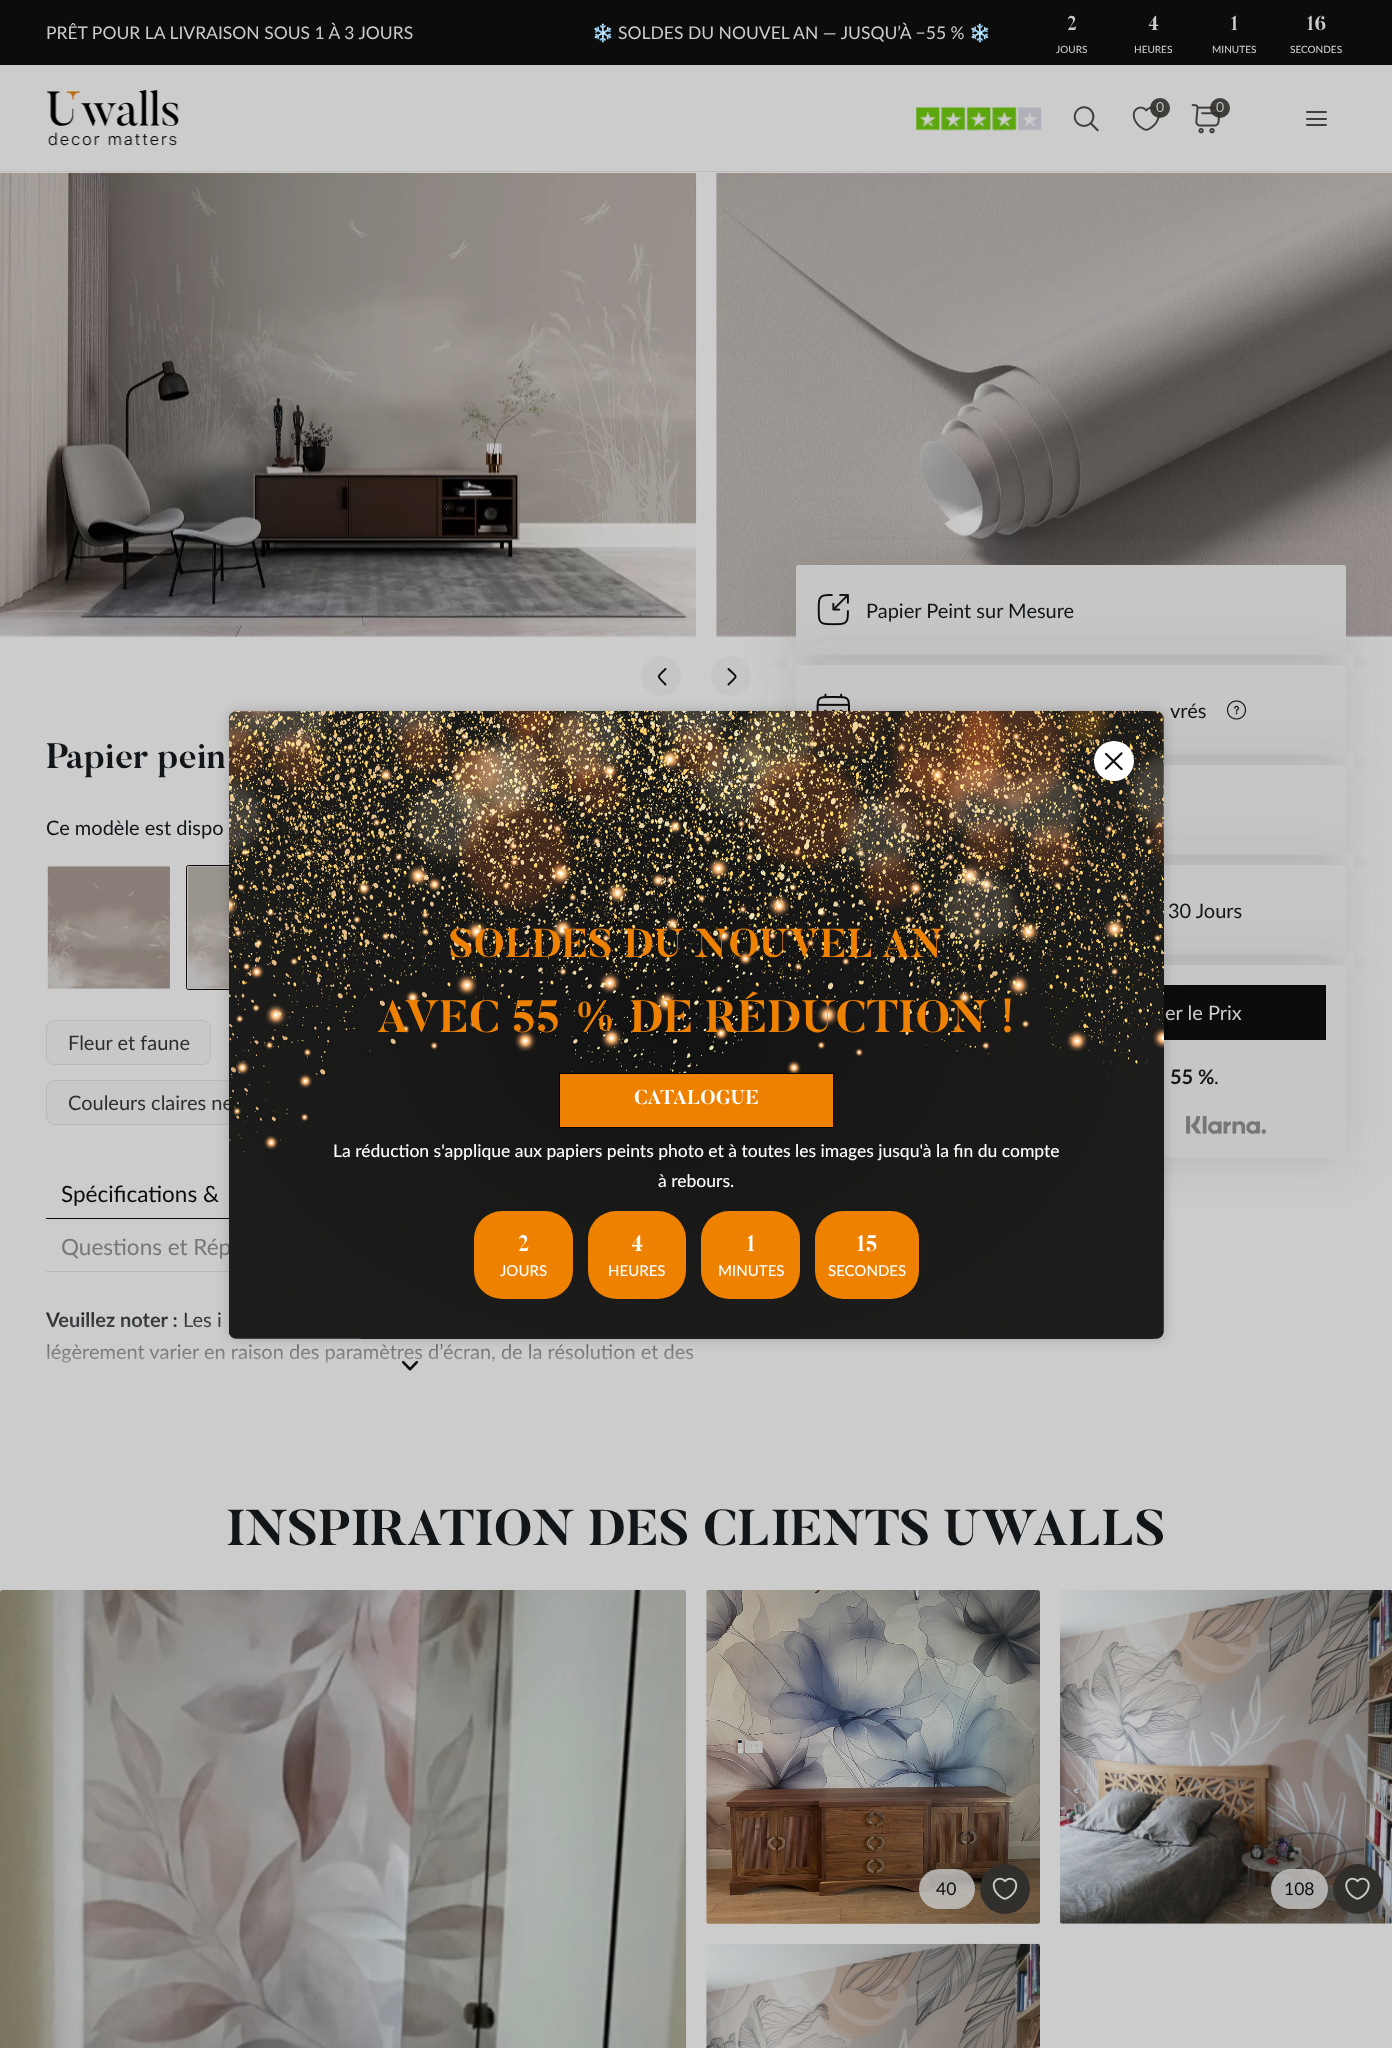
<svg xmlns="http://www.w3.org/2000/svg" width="1392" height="2048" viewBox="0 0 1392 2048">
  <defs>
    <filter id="blur1" x="-50%" y="-200%" width="200%" height="500%"><feGaussianBlur stdDeviation="25"/></filter>
    <linearGradient id="g1" gradientUnits="userSpaceOnUse" x1="409" y1="1428" x2="409" y2="1304"><stop offset="0.3" stop-color="#cccccc"/><stop offset="1" stop-color="#cccccc" stop-opacity="0"/></linearGradient>
    <filter id="blur2" x="-50%" y="-200%" width="200%" height="500%"><feGaussianBlur stdDeviation="6"/></filter>
  </defs>
  <rect width="100%" height="100%" fill="#cccccc"/>
  <rect x="0" y="0" width="1392" height="65" fill="#0c0c0c"/>
  <text x="46" y="39" font-family="Lato" font-size="17.5" fill="#cccccc">PRÊT POUR LA LIVRAISON SOUS 1 À 3 JOURS</text>
  <text x="592" y="39" font-family="Noto Color Emoji" font-size="17.5" fill="#cccccc">❄️</text>
  <text x="618" y="39" font-family="Lato" font-size="17.5" fill="#cccccc">SOLDES DU NOUVEL AN — JUSQU’À −55 %</text>
  <text x="969" y="39" font-family="Noto Color Emoji" font-size="17.5" fill="#cccccc">❄️</text>
  <text x="1067" y="30" font-family="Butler" font-size="20" font-weight="bold" fill="#cccccc">2</text>
  <text x="1056" y="53" font-family="Lato" font-size="10" font-weight="500" fill="#cccccc">JOURS</text>
  <text x="1148" y="30" font-family="Butler" font-size="20" font-weight="bold" fill="#cccccc">4</text>
  <text x="1134" y="53" font-family="Lato" font-size="10" font-weight="500" fill="#cccccc">HEURES</text>
  <text x="1230" y="30" font-family="Butler" font-size="20" font-weight="bold" fill="#cccccc">1</text>
  <text x="1212" y="53" font-family="Lato" font-size="10" font-weight="500" fill="#cccccc">MINUTES</text>
  <text x="1306" y="30" font-family="Butler" font-size="20" font-weight="bold" fill="#cccccc">16</text>
  <text x="1290" y="53" font-family="Lato" font-size="10" font-weight="500" fill="#cccccc">SECONDES</text>
  <rect x="0" y="171" width="1392" height="1" fill="#bebcba"/>
  <image x="47" y="90" width="132" height="56" href="img1.png"/>
  <image x="916" y="107" width="126" height="24" href="img2.png"/>
  <image x="1073" y="106" width="26" height="26" href="img3.png"/>
  <image x="1132" y="106" width="28" height="25" href="img4.png"/>
  <circle cx="1160" cy="108" r="10" fill="#312f2b" fill-opacity="0.9"/>
  <text x="1156" y="112" font-family="Lato" font-size="14" fill="#bebebe">0</text>
  <image x="1191" y="104" width="30" height="30" href="img5.png"/>
  <circle cx="1220" cy="108" r="10" fill="#312f2b" fill-opacity="0.9"/>
  <text x="1216" y="112" font-family="Lato" font-size="14" fill="#bebebe">0</text>
  <rect x="1306" y="111" width="21" height="2" rx="1" fill="#403f3b"/>
  <rect x="1306" y="118" width="21" height="2" rx="1" fill="#403f3b"/>
  <rect x="1306" y="124" width="21" height="2" rx="1" fill="#403f3b"/>
  <image x="0" y="173" width="697" height="464" href="img6.png"/>
  <image x="716" y="173" width="676" height="464" href="img7.png"/>
  <circle cx="661" cy="676" r="20" fill="#c6c6c6"/>
  <path d="M665.5 684.5C656.5 675 656.5 678 665.5 669" fill="none" stroke="#0c0c0c" stroke-width="1.9" stroke-linecap="round" stroke-linejoin="round"/>
  <circle cx="731" cy="676" r="20" fill="#c6c6c6"/>
  <path d="M728.5 684.5C738 675 738 678 728.5 669" fill="none" stroke="#0c0c0c" stroke-width="1.9" stroke-linecap="round" stroke-linejoin="round"/>
  <text x="46" y="768" font-family="Butler" font-size="35" font-weight="bold" fill="#121619">Papier pein</text>
  <rect x="796" y="568" width="550" height="90" rx="2.5" fill="#4b4b4b" fill-opacity="0.2" filter="url(#blur1)"/>
  <rect x="796" y="565" width="550" height="90" rx="2.5" fill="#c6c6c6"/>
  <rect x="796" y="668" width="550" height="90" rx="2.5" fill="#4b4b4b" fill-opacity="0.2" filter="url(#blur1)"/>
  <image x="817" y="594" width="32" height="32" href="img8.png"/>
  <text x="866" y="618" font-family="Lato" font-size="20" fill="#121619">Papier Peint sur Mesure</text>
  <rect x="796" y="665" width="550" height="90" rx="2.5" fill="#c6c6c6"/>
  <rect x="796" y="768" width="550" height="90" rx="2.5" fill="#4b4b4b" fill-opacity="0.2" filter="url(#blur1)"/>
  <rect x="796" y="765" width="550" height="90" rx="2.5" fill="#c6c6c6"/>
  <image x="816" y="693" width="34" height="18" href="img9.png"/>
  <text x="1170" y="718" font-family="Lato" font-size="20" fill="#121619">vrés</text>
  <image x="1227" y="700" width="19" height="20" href="img10.png"/>
  <rect x="796" y="868" width="550" height="90" rx="2.5" fill="#4b4b4b" fill-opacity="0.2" filter="url(#blur1)"/>
  <rect x="796" y="865" width="550" height="90" rx="2.5" fill="#c6c6c6"/>
  <text x="1168" y="918" font-family="Lato" font-size="20" fill="#121619">30 Jours</text>
  <rect x="796" y="968" width="550" height="192" fill="#4b4b4b" fill-opacity="0.2" filter="url(#blur1)"/>
  <rect x="1164" y="965" width="182" height="193" fill="#c6c6c6"/>
  <rect x="1164" y="985" width="162" height="55" fill="#0c0c0c"/>
  <text x="1165" y="1020" font-family="Lato" font-size="20" fill="#cccccc">er le Prix</text>
  <text x="1170" y="1084" font-family="Lato" font-size="20" font-weight="bold" fill="#121619">55 %</text>
  <text x="1214" y="1084" font-family="Lato" font-size="20" fill="#121619">.</text>
  <image x="1186" y="1116" width="80" height="18" href="img11.png"/>
  <text x="46" y="835" font-family="Lato" font-size="20" fill="#121619">Ce modèle est dispo</text>
  <image x="47" y="866" width="123" height="123" href="img12.png"/>
  <rect x="186.5" y="865.5" width="124" height="124" rx="2" fill="none" stroke="#0c0c0c"/>
  <image x="187" y="866" width="42" height="123" href="img13.png"/>
  <rect x="46.5" y="1020.5" width="164" height="44" rx="7.5" fill="#c8c8c8" stroke="#bababa"/>
  <text x="68" y="1050" font-family="Lato" font-size="20" fill="#312f2b">Fleur et faune</text>
  <rect x="46.5" y="1080.5" width="252" height="44" rx="7.5" fill="#c8c8c8" stroke="#bababa"/>
  <text x="68" y="1110" font-family="Lato" font-size="20" fill="#312f2b">Couleurs claires ne</text>
  <rect x="46" y="1218" width="183" height="1" fill="#0c0c0c"/>
  <text x="61" y="1202" font-family="Lato" font-size="22.5" fill="#0c0c0c">Spécifications &amp;</text>
  <rect x="46" y="1271" width="183" height="1" fill="#bababa"/>
  <text x="61" y="1255" font-family="Lato" font-size="22.5" fill="#777777">Questions et Rép</text>
  <text x="46" y="1327" font-family="Lato" font-size="20" font-weight="bold" fill="#121619">Veuillez noter :</text>
  <text x="183" y="1327" font-family="Lato" font-size="20" fill="#121619">Les i</text>
  <text x="46" y="1359" font-family="Lato" font-size="20" fill="#121619">légèrement varier en raison des paramètres d’écran, de la résolution et des</text>
  <rect x="46" y="1312" width="648" height="51" fill="url(#g1)"/>
  <image x="401" y="1360" width="18" height="11" href="img14.png"/>
  <text x="226" y="1545" font-family="Butler" font-size="50" font-weight="bold" fill="#121619">INSPIRATION DES CLIENTS UWALLS</text>
  <image x="0" y="1590" width="687" height="458" href="img15.png"/>
  <image x="706" y="1590" width="334" height="334" href="img16.png"/>
  <rect x="919" y="1869" width="56" height="40" rx="20" fill="#cccccc" fill-opacity="0.79"/>
  <text x="936" y="1895" font-family="Lato" font-size="17.5" fill="#0c0c0c">40</text>
  <circle cx="1005" cy="1889" r="25" fill="#312f2b"/>
  <image x="992" y="1877" width="26" height="23" href="img17.png"/>
  <image x="1060" y="1590" width="332" height="334" href="img18.png"/>
  <rect x="1271" y="1869" width="57" height="40" rx="20" fill="#cccccc" fill-opacity="0.79"/>
  <text x="1284" y="1895" font-family="Lato" font-size="17.5" fill="#0c0c0c">108</text>
  <circle cx="1358" cy="1889" r="25" fill="#312f2b"/>
  <image x="1345" y="1877" width="25" height="23" href="img19.png"/>
  <image x="706" y="1943" width="334" height="105" href="img20.png"/>
  <rect x="228" y="710" width="937" height="630" rx="9" fill="#000000" fill-opacity="0.16" filter="url(#blur2)"/>
  <image x="229" y="711" width="935" height="628" href="img21.png"/>
  <circle cx="1114" cy="761" r="20" fill="#ffffff"/>
  <image x="1104" y="752" width="19" height="19" href="img22.png"/>
  <text x="449" y="957" font-family="Butler" font-size="40" font-weight="bold" fill="#ef8100">SOLDES DU NOUVEL AN</text>
  <text x="377" y="1032" font-family="Butler" font-size="45" font-weight="bold" fill="#ef8100">AVEC 55 % DE RÉDUCTION !</text>
  <rect x="559.5" y="1073.5" width="274" height="54" fill="#ef8100" stroke="#000000"/>
  <text x="634" y="1104" font-family="Butler" font-size="20" font-weight="bold" fill="#ffffff">CATALOGUE</text>
  <text x="333" y="1157" font-family="Lato" font-size="17.5" font-weight="500" fill="#ffffff">La réduction s'applique aux papiers peints photo et à toutes les images jusqu'à la fin du compte</text>
  <text x="658" y="1187" font-family="Lato" font-size="17.5" font-weight="500" fill="#ffffff">à rebours.</text>
  <rect x="474" y="1211" width="99" height="88" rx="28" fill="#ef8100"/>
  <text x="518" y="1251" font-family="Butler" font-size="22.5" font-weight="bold" fill="#ffffff">2</text>
  <text x="500" y="1276" font-family="Lato" font-size="15" font-weight="500" fill="#ffffff">JOURS</text>
  <rect x="588" y="1211" width="98" height="88" rx="28" fill="#ef8100"/>
  <text x="631" y="1251" font-family="Butler" font-size="22.5" font-weight="bold" fill="#ffffff">4</text>
  <text x="608" y="1276" font-family="Lato" font-size="15" font-weight="500" fill="#ffffff">HEURES</text>
  <rect x="701" y="1211" width="99" height="88" rx="28" fill="#ef8100"/>
  <text x="746" y="1251" font-family="Butler" font-size="22.5" font-weight="bold" fill="#ffffff">1</text>
  <text x="718" y="1276" font-family="Lato" font-size="15" font-weight="500" fill="#ffffff">MINUTES</text>
  <rect x="815" y="1211" width="104" height="88" rx="28" fill="#ef8100"/>
  <text x="856" y="1251" font-family="Butler" font-size="22.5" font-weight="bold" fill="#ffffff">15</text>
  <text x="828" y="1276" font-family="Lato" font-size="15" font-weight="500" fill="#ffffff">SECONDES</text>
</svg>
